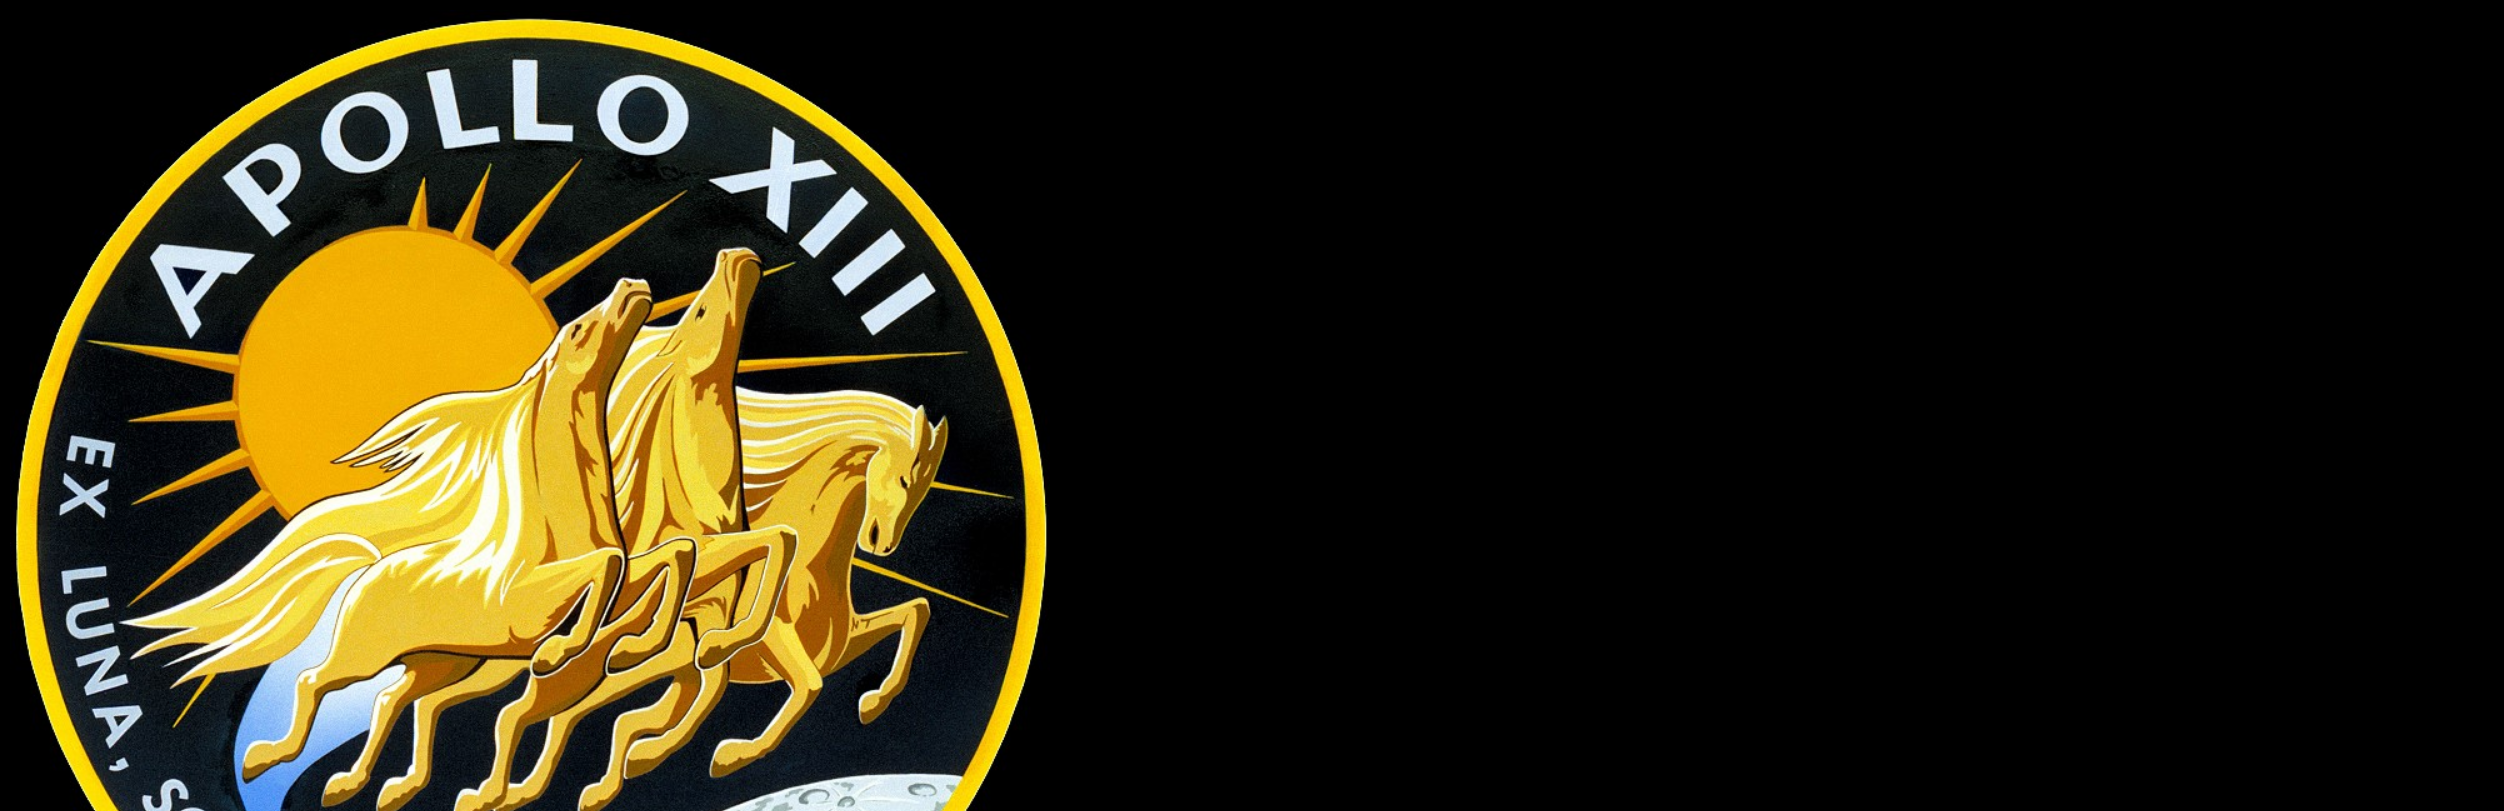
<svg xmlns="http://www.w3.org/2000/svg" width="2504" height="811" viewBox="0 0 2504 811">
  <rect width="100%" height="100%" fill="#000000"/>
  <image x="10" y="10" width="1040" height="801" href="img1.png"/>
</svg>
